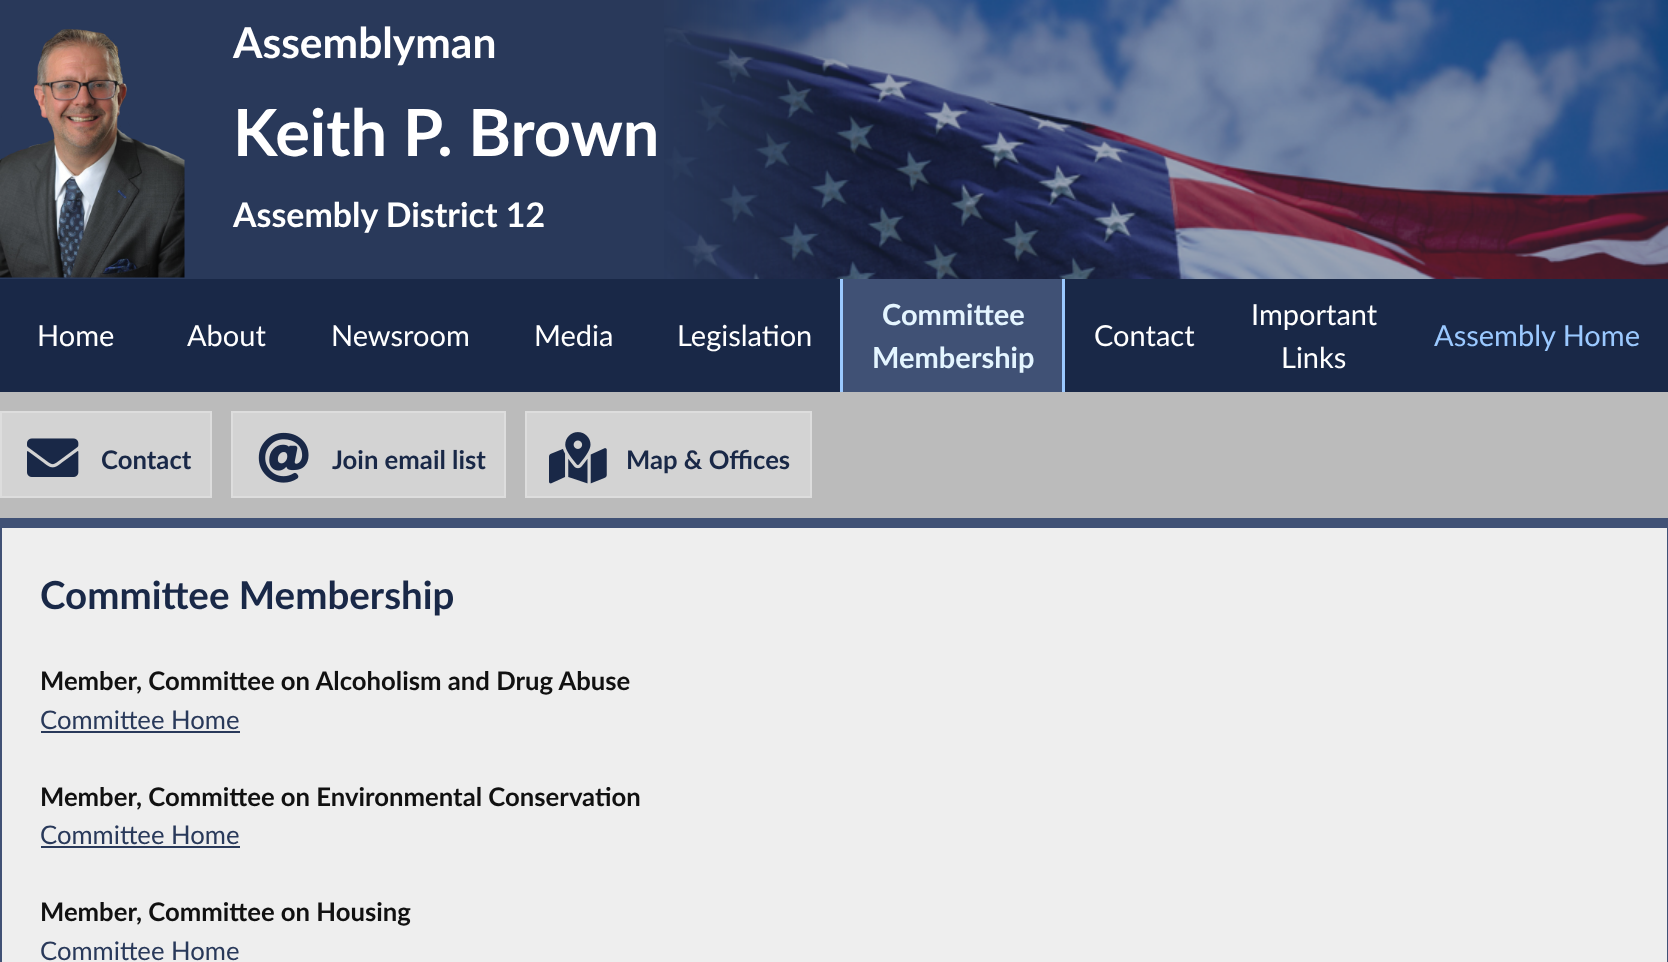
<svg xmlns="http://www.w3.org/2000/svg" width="1668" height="962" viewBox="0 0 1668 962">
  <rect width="100%" height="100%" fill="#bbbbbb"/>
  <rect x="0" y="0" width="1668" height="279" fill="#29395a"/>
  <image x="664" y="0" width="1004" height="279" href="img1.png"/>
  <image x="0" y="29" width="185" height="249" href="img2.png"/>
  <text x="233" y="58" font-family="Lato" font-size="42.5" font-weight="bold" fill="#ffffff">Assemblyman</text>
  <text x="233" y="156" font-family="Lato" font-size="65" font-weight="bold" fill="#ffffff">Keith P. Brown</text>
  <text x="233" y="227" font-family="Lato" font-size="33.9" font-weight="bold" fill="#ffffff">Assembly District 12</text>
  <rect x="0" y="279" width="1668" height="113" fill="#192847"/>
  <text x="37" y="346" font-family="Lato" font-size="29" fill="#ffffff">Home</text>
  <text x="187" y="346" font-family="Lato" font-size="29" fill="#ffffff">About</text>
  <text x="331" y="346" font-family="Lato" font-size="29" fill="#ffffff">Newsroom</text>
  <text x="534" y="346" font-family="Lato" font-size="29" fill="#ffffff">Media</text>
  <text x="677" y="346" font-family="Lato" font-size="29" fill="#ffffff">Legislation</text>
  <rect x="843" y="279" width="219" height="113" fill="#405175"/>
  <rect x="1062" y="279" width="3" height="113" fill="#9bc9ff"/>
  <rect x="840" y="279" width="3" height="113" fill="#9bc9ff"/>
  <text x="882" y="325" font-family="Lato" font-size="29" font-weight="bold" fill="#e4f5ff">Committee</text>
  <text x="872" y="368" font-family="Lato" font-size="29" font-weight="bold" fill="#e4f5ff">Membership</text>
  <text x="1094" y="346" font-family="Lato" font-size="29" fill="#ffffff">Contact</text>
  <text x="1251" y="325" font-family="Lato" font-size="29" fill="#ffffff">Important</text>
  <text x="1281" y="368" font-family="Lato" font-size="29" fill="#ffffff">Links</text>
  <text x="1434" y="346" font-family="Lato" font-size="29" fill="#9bc9ff">Assembly Home</text>
  <rect x="1" y="412" width="210" height="85" fill="#d3d3d3" stroke="#dddddd" stroke-width="2"/>
  <image x="27" y="438" width="52" height="39" href="img3.png"/>
  <text x="101" y="469" font-family="Lato" font-size="25.7" font-weight="bold" fill="#192847">Contact</text>
  <rect x="232" y="412" width="273" height="85" fill="#d3d3d3" stroke="#dddddd" stroke-width="2"/>
  <image x="258" y="432" width="51" height="51" href="img4.png"/>
  <text x="332" y="469" font-family="Lato" font-size="25.7" font-weight="bold" fill="#192847">Join email list</text>
  <rect x="526" y="412" width="285" height="85" fill="#d3d3d3" stroke="#dddddd" stroke-width="2"/>
  <image x="549" y="432" width="58" height="52" href="img5.png"/>
  <text x="626" y="469" font-family="Lato" font-size="25.7" font-weight="bold" fill="#192847">Map &amp; Offices</text>
  <rect x="2" y="528" width="1665" height="434" fill="#eeeeee"/>
  <rect x="2" y="518" width="1665" height="10" fill="#405175"/>
  <rect x="1667" y="518" width="1" height="444" fill="#405175"/>
  <rect x="0" y="518" width="2" height="444" fill="#405175"/>
  <text x="40" y="609" font-family="Lato" font-size="38.5" font-weight="bold" fill="#192847">Committee Membership</text>
  <text x="40" y="690" font-family="Lato" font-size="25.7" font-weight="bold" fill="#111111">Member, Committee on Alcoholism and Drug Abuse</text>
  <text x="40" y="729" font-family="Lato" font-size="25.7" fill="#29395a">Committee Home</text>
  <rect x="41" y="731" width="199" height="2" fill="#29395a"/>
  <text x="40" y="806" font-family="Lato" font-size="25.7" font-weight="bold" fill="#111111">Member, Committee on Environmental Conservation</text>
  <text x="40" y="844" font-family="Lato" font-size="25.7" fill="#29395a">Committee Home</text>
  <rect x="41" y="846" width="199" height="2" fill="#29395a"/>
  <text x="40" y="921" font-family="Lato" font-size="25.7" font-weight="bold" fill="#111111">Member, Committee on Housing</text>
  <text x="40" y="960" font-family="Lato" font-size="25.7" fill="#29395a">Committee Home</text>
</svg>
